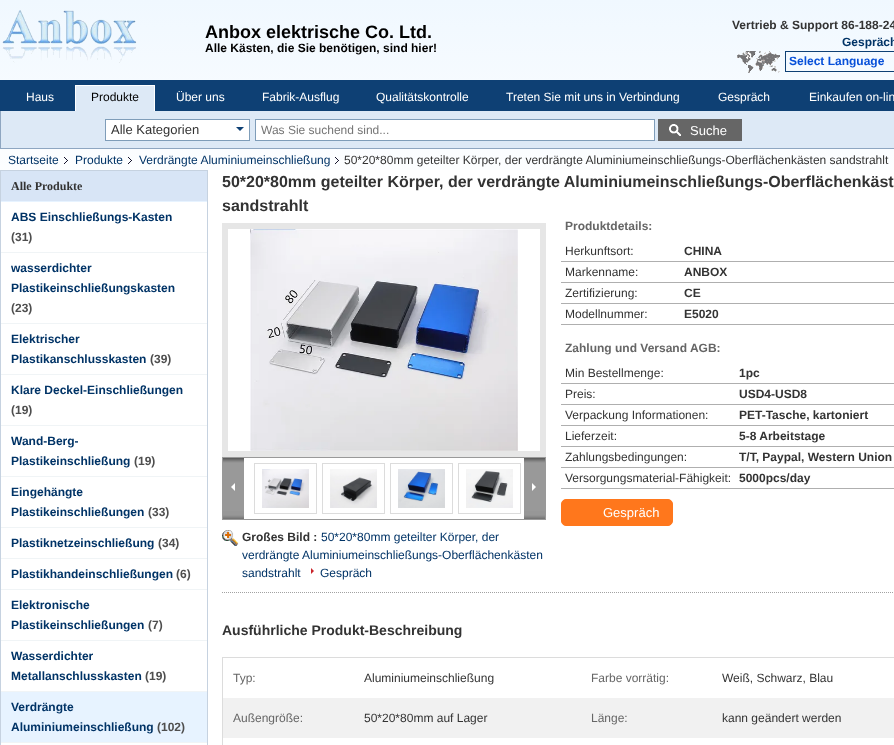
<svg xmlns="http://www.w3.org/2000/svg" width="894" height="745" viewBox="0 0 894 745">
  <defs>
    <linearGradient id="g1" gradientUnits="userSpaceOnUse" x1="447" y1="0" x2="447" y2="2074"><stop offset="0" stop-color="#f0f8ff"/><stop offset="0.1" stop-color="#ffffff"/><stop offset="1" stop-color="#ffffff"/></linearGradient>
    <clipPath id="clip1"><rect x="0" y="80" width="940" height="31"/></clipPath>
  </defs>
  <rect width="100%" height="100%" fill="#ffffff"/>
  <rect x="0" y="0" width="894" height="170" fill="url(#g1)"/>
  <image x="2" y="10" width="135" height="53" href="img1.png"/>
  <text x="205" y="38" font-family="Liberation Sans" font-size="18" font-weight="bold" fill="#000000">Anbox elektrische Co. Ltd.</text>
  <text x="205" y="52" font-family="Liberation Sans" font-size="12" font-weight="bold" fill="#000000">Alle Kästen, die Sie benötigen, sind hier!</text>
  <text x="732" y="29" font-family="Liberation Sans" font-size="12" font-weight="bold" fill="#333333">Vertrieb &amp; Support 86-188-24</text>
  <text x="842" y="46" font-family="Liberation Sans" font-size="12" font-weight="bold" fill="#003366">Gespräch</text>
  <image x="737" y="51" width="43" height="22" href="img2.png"/>
  <rect x="785.5" y="51.5" width="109" height="20" fill="none" stroke="#0e4074"/>
  <text x="789" y="65" font-family="Liberation Sans" font-size="12" font-weight="bold" fill="#0750d9">Select Language</text>
  <rect x="0" y="148" width="894" height="1" fill="#8ea6c1"/>
  <rect x="0" y="110" width="1" height="39" fill="#8ea6c1"/>
  <rect x="0" y="80" width="894" height="31" fill="#0e4074"/>
  <text x="26" y="101" font-family="Liberation Sans" font-size="12" fill="#ffffff">Haus</text>
  <rect x="76" y="86" width="78" height="25" fill="#dde9f6"/>
  <rect x="1" y="111" width="893" height="37" fill="#dde9f6"/>
  <g clip-path="url(#clip1)">
    <rect x="75.5" y="85.5" width="79" height="39" fill="none" stroke="#ffffff"/>
  </g>
  <text x="91" y="101" font-family="Liberation Sans" font-size="12" fill="#000000">Produkte</text>
  <text x="176" y="101" font-family="Liberation Sans" font-size="12" fill="#ffffff">Über uns</text>
  <text x="262" y="101" font-family="Liberation Sans" font-size="12" fill="#ffffff">Fabrik-Ausflug</text>
  <text x="376" y="101" font-family="Liberation Sans" font-size="12" fill="#ffffff">Qualitätskontrolle</text>
  <text x="506" y="101" font-family="Liberation Sans" font-size="12" fill="#ffffff">Treten Sie mit uns in Verbindung</text>
  <text x="718" y="101" font-family="Liberation Sans" font-size="12" fill="#ffffff">Gespräch</text>
  <text x="809" y="101" font-family="Liberation Sans" font-size="12" fill="#ffffff">Einkaufen on-lin</text>
  <rect x="105.5" y="119.5" width="144" height="21" fill="none" stroke="#7f9db9"/>
  <rect x="106" y="120" width="143" height="20" fill="#ffffff"/>
  <text x="111" y="134" font-family="Liberation Sans" font-size="13" fill="#333333">Alle Kategorien</text>
  <path d="M236 127H244L240 131Z" fill="#0e4074"/>
  <rect x="255.5" y="119.5" width="399" height="21" fill="#ffffff" stroke="#7f9db9"/>
  <text x="261" y="134" font-family="Liberation Sans" font-size="12" fill="#757575">Was Sie suchend sind...</text>
  <rect x="658" y="119" width="84" height="22" fill="#666666"/>
  <image x="669" y="124" width="12" height="12" href="img3.png"/>
  <text x="690" y="135" font-family="Liberation Sans" font-size="13" fill="#ffffff">Suche</text>
  <text x="8" y="164" font-family="Liberation Sans" font-size="12" fill="#003366">Startseite</text>
  <image x="64" y="157" width="4" height="7" href="img4.png"/>
  <text x="75" y="164" font-family="Liberation Sans" font-size="12" fill="#003366">Produkte</text>
  <image x="128" y="157" width="4" height="7" href="img4.png"/>
  <text x="139" y="164" font-family="Liberation Sans" font-size="12" fill="#003366">Verdrängte Aluminiumeinschließung</text>
  <image x="335" y="157" width="4" height="7" href="img4.png"/>
  <text x="344" y="164" font-family="Liberation Sans" font-size="12" fill="#333333">50*20*80mm geteilter Körper, der verdrängte Aluminiumeinschließungs-Oberflächenkästen sandstrahlt</text>
  <rect x="0.5" y="170.5" width="207" height="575" fill="none" stroke="#c6d2e0"/>
  <rect x="1" y="171" width="206" height="30" fill="#d8e5f6"/>
  <rect x="1" y="201" width="206" height="1" fill="#e7f3ff"/>
  <text x="11" y="190" font-family="Liberation Serif" font-size="12" font-weight="bold" fill="#333333">Alle Produkte</text>
  <rect x="1" y="252" width="206" height="1" fill="#f0f4f6"/>
  <text x="11" y="221" font-family="Liberation Sans" font-size="12" font-weight="bold" fill="#003366">ABS Einschließungs-Kasten</text>
  <text x="11" y="241" font-family="Liberation Sans" font-size="12" font-weight="bold" fill="#4e4e4e">(31)</text>
  <rect x="1" y="323" width="206" height="1" fill="#f0f4f6"/>
  <text x="11" y="272" font-family="Liberation Sans" font-size="12" font-weight="bold" fill="#003366">wasserdichter</text>
  <text x="11" y="292" font-family="Liberation Sans" font-size="12" font-weight="bold" fill="#003366">Plastikeinschließungskasten</text>
  <text x="11" y="312" font-family="Liberation Sans" font-size="12" font-weight="bold" fill="#4e4e4e">(23)</text>
  <rect x="1" y="374" width="206" height="1" fill="#f0f4f6"/>
  <text x="11" y="343" font-family="Liberation Sans" font-size="12" font-weight="bold" fill="#003366">Elektrischer</text>
  <text x="11" y="363" font-family="Liberation Sans" font-size="12" font-weight="bold" fill="#003366">Plastikanschlusskasten</text>
  <text x="150" y="363" font-family="Liberation Sans" font-size="12" font-weight="bold" fill="#4e4e4e">(39)</text>
  <rect x="1" y="425" width="206" height="1" fill="#f0f4f6"/>
  <text x="11" y="394" font-family="Liberation Sans" font-size="12" font-weight="bold" fill="#003366">Klare Deckel-Einschließungen</text>
  <text x="11" y="414" font-family="Liberation Sans" font-size="12" font-weight="bold" fill="#4e4e4e">(19)</text>
  <rect x="1" y="476" width="206" height="1" fill="#f0f4f6"/>
  <text x="11" y="445" font-family="Liberation Sans" font-size="12" font-weight="bold" fill="#003366">Wand-Berg-</text>
  <text x="11" y="465" font-family="Liberation Sans" font-size="12" font-weight="bold" fill="#003366">Plastikeinschließung</text>
  <text x="134" y="465" font-family="Liberation Sans" font-size="12" font-weight="bold" fill="#4e4e4e">(19)</text>
  <rect x="1" y="527" width="206" height="1" fill="#f0f4f6"/>
  <text x="11" y="496" font-family="Liberation Sans" font-size="12" font-weight="bold" fill="#003366">Eingehängte</text>
  <text x="11" y="516" font-family="Liberation Sans" font-size="12" font-weight="bold" fill="#003366">Plastikeinschließungen</text>
  <text x="148" y="516" font-family="Liberation Sans" font-size="12" font-weight="bold" fill="#4e4e4e">(33)</text>
  <rect x="1" y="558" width="206" height="1" fill="#f0f4f6"/>
  <text x="11" y="547" font-family="Liberation Sans" font-size="12" font-weight="bold" fill="#003366">Plastiknetzeinschließung</text>
  <text x="158" y="547" font-family="Liberation Sans" font-size="12" font-weight="bold" fill="#4e4e4e">(34)</text>
  <rect x="1" y="589" width="206" height="1" fill="#f0f4f6"/>
  <text x="11" y="578" font-family="Liberation Sans" font-size="12" font-weight="bold" fill="#003366">Plastikhandeinschließungen</text>
  <text x="176" y="578" font-family="Liberation Sans" font-size="12" font-weight="bold" fill="#4e4e4e">(6)</text>
  <rect x="1" y="640" width="206" height="1" fill="#f0f4f6"/>
  <text x="11" y="609" font-family="Liberation Sans" font-size="12" font-weight="bold" fill="#003366">Elektronische</text>
  <text x="11" y="629" font-family="Liberation Sans" font-size="12" font-weight="bold" fill="#003366">Plastikeinschließungen</text>
  <text x="148" y="629" font-family="Liberation Sans" font-size="12" font-weight="bold" fill="#4e4e4e">(7)</text>
  <rect x="1" y="691" width="206" height="1" fill="#f0f4f6"/>
  <text x="11" y="660" font-family="Liberation Sans" font-size="12" font-weight="bold" fill="#003366">Wasserdichter</text>
  <text x="11" y="680" font-family="Liberation Sans" font-size="12" font-weight="bold" fill="#003366">Metallanschlusskasten</text>
  <text x="145" y="680" font-family="Liberation Sans" font-size="12" font-weight="bold" fill="#4e4e4e">(19)</text>
  <rect x="1" y="692" width="206" height="50" fill="#e7f3ff"/>
  <rect x="1" y="742" width="206" height="1" fill="#f0f4f6"/>
  <text x="11" y="711" font-family="Liberation Sans" font-size="12" font-weight="bold" fill="#003366">Verdrängte</text>
  <text x="11" y="731" font-family="Liberation Sans" font-size="12" font-weight="bold" fill="#003366">Aluminiumeinschließung</text>
  <text x="157" y="731" font-family="Liberation Sans" font-size="12" font-weight="bold" fill="#4e4e4e">(102)</text>
  <text x="222" y="187" font-family="Liberation Sans" font-size="16" font-weight="bold" fill="#333333">50*20*80mm geteilter Körper, der verdrängte Aluminiumeinschließungs-Oberflächenkäst</text>
  <text x="222" y="211" font-family="Liberation Sans" font-size="16" font-weight="bold" fill="#333333">sandstrahlt</text>
  <path d="M222 592.5H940" fill="none" stroke="#a2a2a2" stroke-dasharray="1 1"/>
  <text x="565" y="230" font-family="Liberation Sans" font-size="12" font-weight="bold" fill="#666666">Produktdetails:</text>
  <text x="565" y="255" font-family="Liberation Sans" font-size="12" fill="#333333">Herkunftsort:</text>
  <rect x="561" y="261" width="333" height="1" fill="#afafaf"/>
  <text x="684" y="255" font-family="Liberation Sans" font-size="12" font-weight="bold" fill="#333333">CHINA</text>
  <text x="565" y="276" font-family="Liberation Sans" font-size="12" fill="#333333">Markenname:</text>
  <rect x="561" y="282" width="333" height="1" fill="#afafaf"/>
  <text x="684" y="276" font-family="Liberation Sans" font-size="12" font-weight="bold" fill="#333333">ANBOX</text>
  <text x="565" y="297" font-family="Liberation Sans" font-size="12" fill="#333333">Zertifizierung:</text>
  <rect x="561" y="303" width="333" height="1" fill="#afafaf"/>
  <text x="684" y="297" font-family="Liberation Sans" font-size="12" font-weight="bold" fill="#333333">CE</text>
  <text x="565" y="318" font-family="Liberation Sans" font-size="12" fill="#333333">Modellnummer:</text>
  <rect x="561" y="324" width="333" height="1" fill="#afafaf"/>
  <text x="684" y="318" font-family="Liberation Sans" font-size="12" font-weight="bold" fill="#333333">E5020</text>
  <text x="565" y="352" font-family="Liberation Sans" font-size="12" font-weight="bold" fill="#666666">Zahlung und Versand AGB:</text>
  <text x="565" y="377" font-family="Liberation Sans" font-size="12" fill="#333333">Min Bestellmenge:</text>
  <rect x="561" y="383" width="333" height="1" fill="#afafaf"/>
  <text x="739" y="377" font-family="Liberation Sans" font-size="12" font-weight="bold" fill="#333333">1pc</text>
  <text x="565" y="398" font-family="Liberation Sans" font-size="12" fill="#333333">Preis:</text>
  <rect x="561" y="404" width="333" height="1" fill="#afafaf"/>
  <text x="739" y="398" font-family="Liberation Sans" font-size="12" font-weight="bold" fill="#333333">USD4-USD8</text>
  <text x="565" y="419" font-family="Liberation Sans" font-size="12" fill="#333333">Verpackung Informationen:</text>
  <rect x="561" y="425" width="333" height="1" fill="#afafaf"/>
  <text x="739" y="419" font-family="Liberation Sans" font-size="12" font-weight="bold" fill="#333333">PET-Tasche, kartoniert</text>
  <text x="565" y="440" font-family="Liberation Sans" font-size="12" fill="#333333">Lieferzeit:</text>
  <rect x="561" y="446" width="333" height="1" fill="#afafaf"/>
  <text x="739" y="440" font-family="Liberation Sans" font-size="12" font-weight="bold" fill="#333333">5-8 Arbeitstage</text>
  <text x="565" y="461" font-family="Liberation Sans" font-size="12" fill="#333333">Zahlungsbedingungen:</text>
  <rect x="561" y="467" width="333" height="1" fill="#afafaf"/>
  <text x="739" y="461" font-family="Liberation Sans" font-size="12" font-weight="bold" fill="#333333">T/T, Paypal, Western Union</text>
  <text x="565" y="482" font-family="Liberation Sans" font-size="12" fill="#333333">Versorgungsmaterial-Fähigkeit:</text>
  <rect x="561" y="488" width="333" height="1" fill="#afafaf"/>
  <text x="739" y="482" font-family="Liberation Sans" font-size="12" font-weight="bold" fill="#333333">5000pcs/day</text>
  <rect x="561.5" y="499.5" width="111" height="26" rx="4.5" fill="#ff771c" stroke="#ff771c"/>
  <text x="603" y="517" font-family="Liberation Sans" font-size="13" fill="#ffffff">Gespräch</text>
  <rect x="225" y="226" width="318" height="228" fill="none" stroke="#e6e6e6" stroke-width="6"/>
  <image x="250" y="229" width="268" height="222" href="img5.png"/>
  <rect x="222.5" y="457.5" width="323" height="62" fill="none" stroke="#999999"/>
  <image x="223" y="458" width="21" height="61" href="img6.png"/>
  <path d="M235 483V491L231 487Z" fill="#ffffff"/>
  <rect x="254.5" y="463.5" width="62" height="50" fill="none" stroke="#dcdcdc"/>
  <image x="262" y="469" width="47" height="39" href="img7.png"/>
  <rect x="322.5" y="463.5" width="62" height="50" fill="none" stroke="#dcdcdc"/>
  <image x="330" y="469" width="47" height="39" href="img8.png"/>
  <rect x="390.5" y="463.5" width="62" height="50" fill="none" stroke="#dcdcdc"/>
  <image x="398" y="469" width="47" height="39" href="img9.png"/>
  <rect x="458.5" y="463.5" width="62" height="50" fill="none" stroke="#dcdcdc"/>
  <image x="466" y="469" width="47" height="39" href="img10.png"/>
  <image x="524" y="458" width="21" height="61" href="img6.png"/>
  <path d="M532 491V483L536 487Z" fill="#ffffff"/>
  <image x="222" y="530" width="17" height="16" href="img11.png"/>
  <text x="242" y="541" font-family="Liberation Sans" font-size="12" font-weight="bold" fill="#333333">Großes Bild :</text>
  <text x="321" y="541" font-family="Liberation Sans" font-size="12" fill="#003366">50*20*80mm geteilter Körper, der</text>
  <text x="242" y="559" font-family="Liberation Sans" font-size="12" fill="#003366">verdrängte Aluminiumeinschließungs-Oberflächenkästen</text>
  <text x="242" y="577" font-family="Liberation Sans" font-size="12" fill="#003366">sandstrahlt</text>
  <path d="M311 574V568L314 571Z" fill="#c9242b"/>
  <text x="320" y="577" font-family="Liberation Sans" font-size="12" fill="#003366">Gespräch</text>
  <text x="222" y="635" font-family="Liberation Sans" font-size="14" font-weight="bold" fill="#333333">Ausführliche Produkt-Beschreibung</text>
  <rect x="222.5" y="657.5" width="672" height="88" fill="none" stroke="#dcdcdc"/>
  <text x="233" y="682" font-family="Liberation Sans" font-size="12" fill="#666666">Typ:</text>
  <text x="364" y="682" font-family="Liberation Sans" font-size="12" fill="#333333">Aluminiumeinschließung</text>
  <text x="591" y="682" font-family="Liberation Sans" font-size="12" fill="#666666">Farbe vorrätig:</text>
  <text x="722" y="682" font-family="Liberation Sans" font-size="12" fill="#333333">Weiß, Schwarz, Blau</text>
  <rect x="223" y="698" width="671" height="40" fill="#f1f1f1"/>
  <text x="233" y="722" font-family="Liberation Sans" font-size="12" fill="#666666">Außengröße:</text>
  <text x="364" y="722" font-family="Liberation Sans" font-size="12" fill="#333333">50*20*80mm auf Lager</text>
  <text x="591" y="722" font-family="Liberation Sans" font-size="12" fill="#666666">Länge:</text>
  <text x="722" y="722" font-family="Liberation Sans" font-size="12" fill="#333333">kann geändert werden</text>
</svg>
